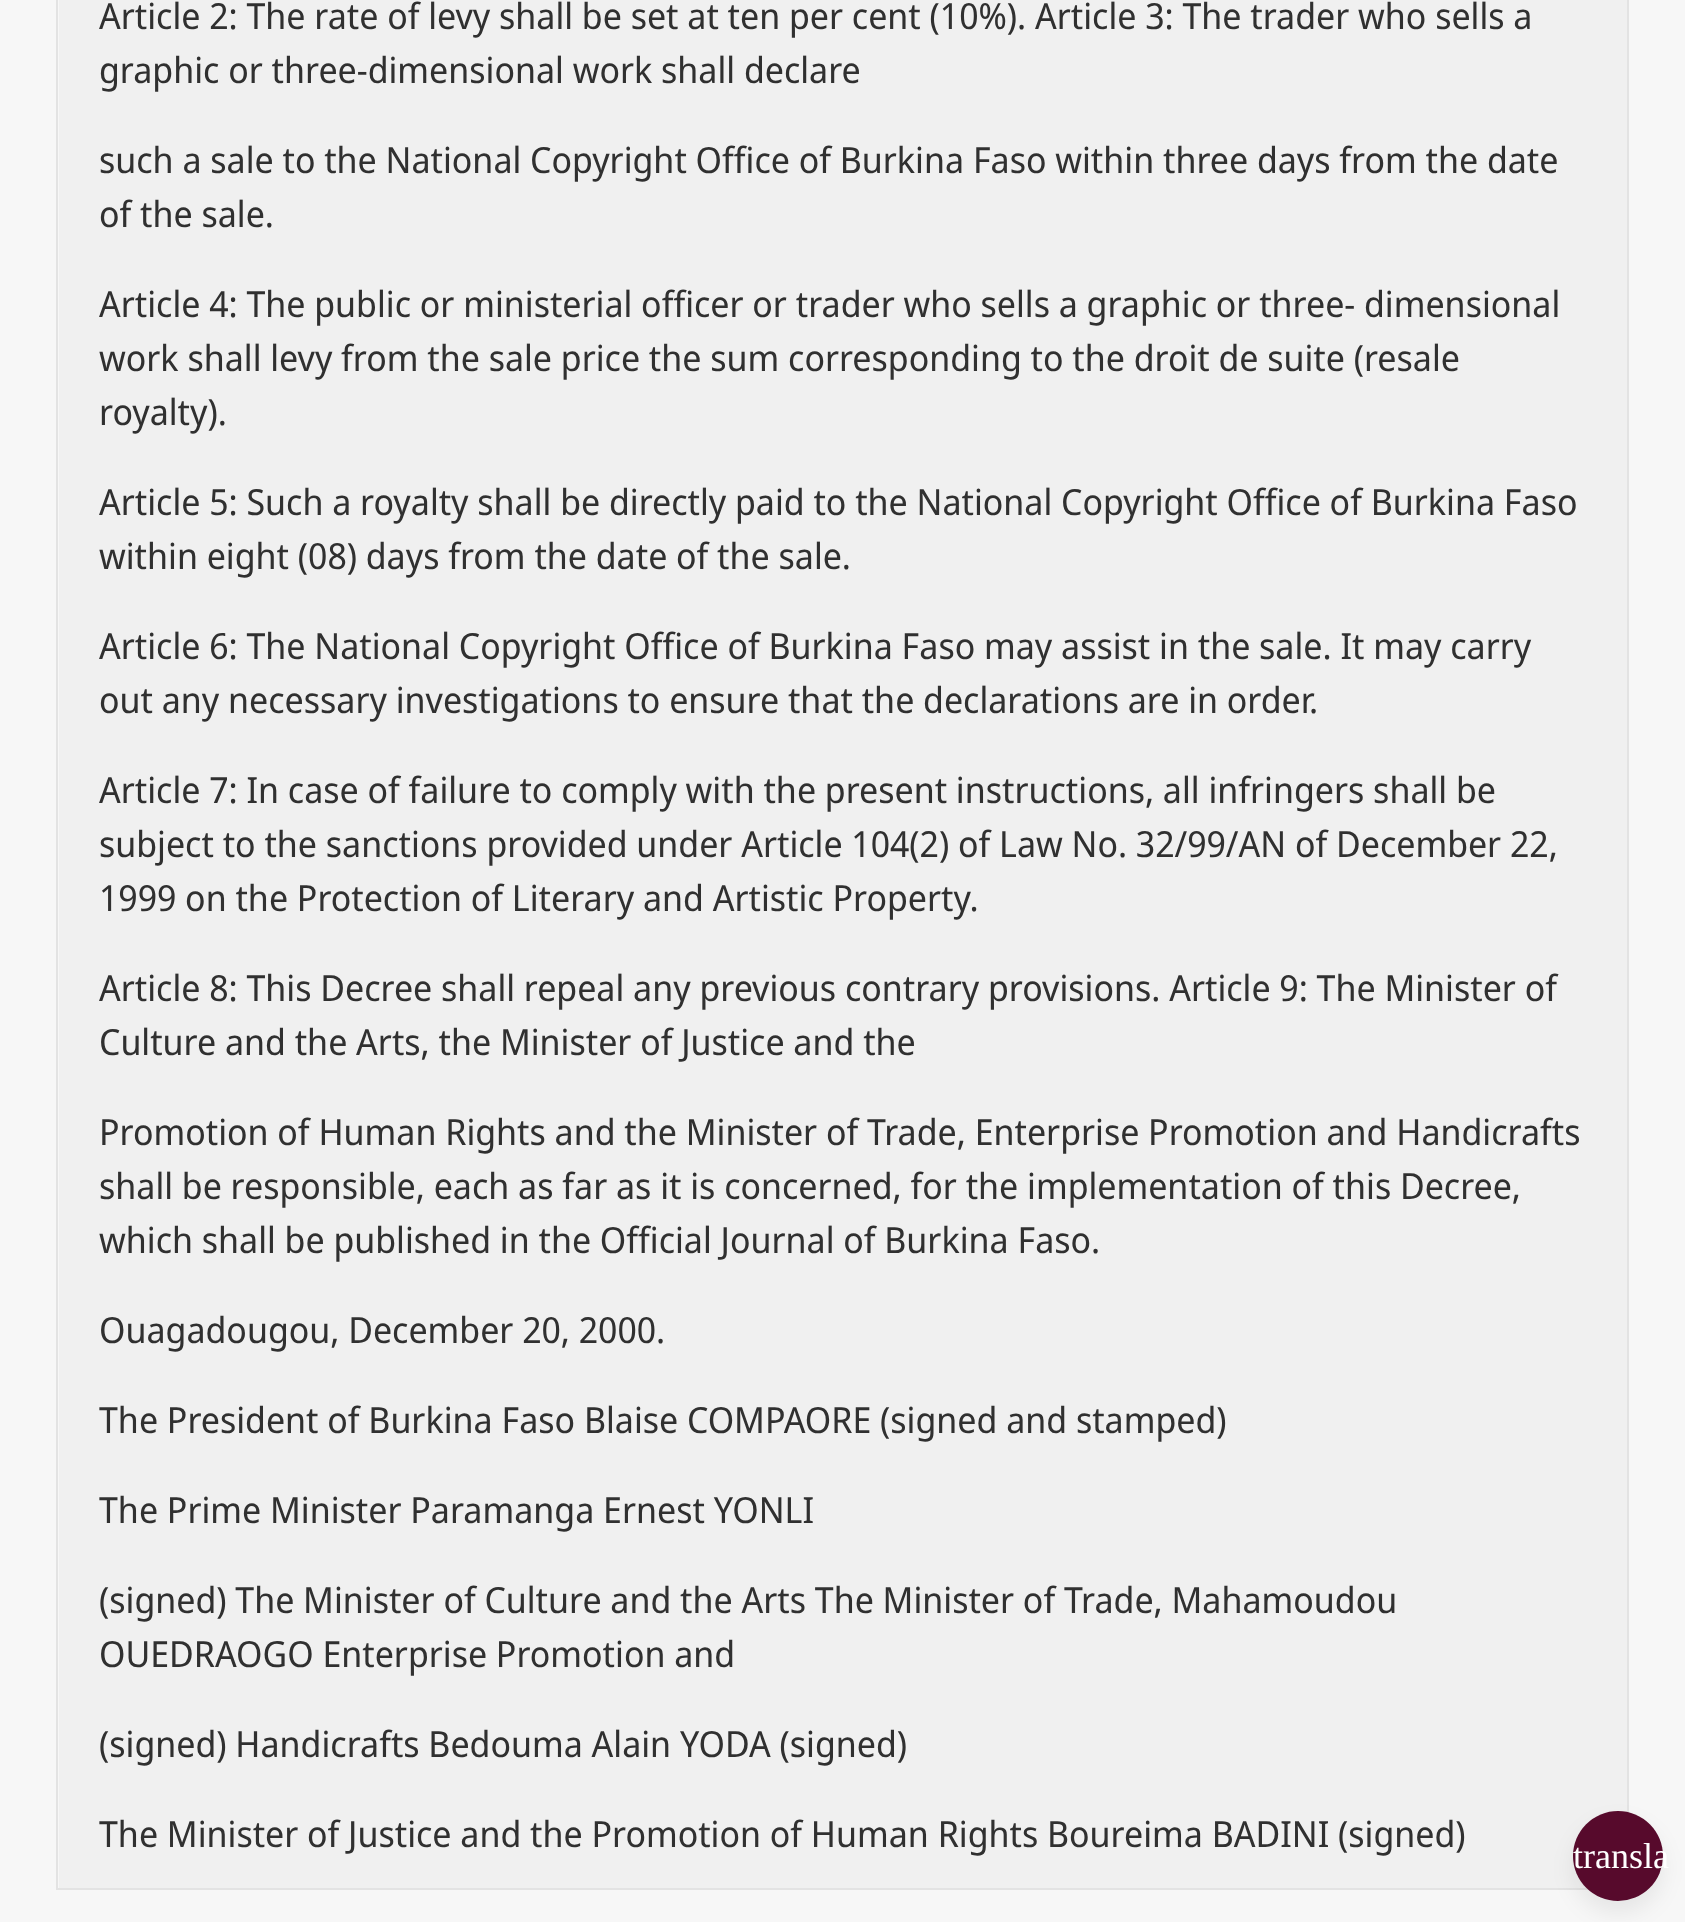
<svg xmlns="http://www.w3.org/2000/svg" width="1685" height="1922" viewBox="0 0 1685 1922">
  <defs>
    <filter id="blur1" x="-50%" y="-200%" width="200%" height="500%"><feGaussianBlur stdDeviation="11"/></filter>
  </defs>
  <rect width="100%" height="100%" fill="#f7f7f7"/>
  <rect x="59" y="0" width="1568" height="1888" fill="#f0f0f0"/>
  <rect x="57" y="-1" width="1571" height="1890" fill="none" stroke="#e3e3e3" stroke-width="2"/>
  <text x="99" y="29" font-family="Noto Sans Display" font-size="36" fill="#303030">Article 2: The rate of levy shall be set at ten per cent (10%). Article 3: The trader who sells a</text>
  <text x="99" y="83" font-family="Noto Sans Display" font-size="36" fill="#303030">graphic or three-dimensional work shall declare</text>
  <text x="99" y="173" font-family="Noto Sans Display" font-size="36" fill="#303030">such a sale to the National Copyright Office of Burkina Faso within three days from the date</text>
  <text x="99" y="227" font-family="Noto Sans Display" font-size="36" fill="#303030">of the sale.</text>
  <text x="99" y="317" font-family="Noto Sans Display" font-size="36" fill="#303030">Article 4: The public or ministerial officer or trader who sells a graphic or three- dimensional</text>
  <text x="99" y="371" font-family="Noto Sans Display" font-size="36" fill="#303030">work shall levy from the sale price the sum corresponding to the droit de suite (resale</text>
  <text x="99" y="425" font-family="Noto Sans Display" font-size="36" fill="#303030">royalty).</text>
  <text x="99" y="515" font-family="Noto Sans Display" font-size="36" fill="#303030">Article 5: Such a royalty shall be directly paid to the National Copyright Office of Burkina Faso</text>
  <text x="99" y="569" font-family="Noto Sans Display" font-size="36" fill="#303030">within eight (08) days from the date of the sale.</text>
  <text x="99" y="659" font-family="Noto Sans Display" font-size="36" fill="#303030">Article 6: The National Copyright Office of Burkina Faso may assist in the sale. It may carry</text>
  <text x="99" y="713" font-family="Noto Sans Display" font-size="36" fill="#303030">out any necessary investigations to ensure that the declarations are in order.</text>
  <text x="99" y="803" font-family="Noto Sans Display" font-size="36" fill="#303030">Article 7: In case of failure to comply with the present instructions, all infringers shall be</text>
  <text x="99" y="857" font-family="Noto Sans Display" font-size="36" fill="#303030">subject to the sanctions provided under Article 104(2) of Law No. 32/99/AN of December 22,</text>
  <text x="99" y="911" font-family="Noto Sans Display" font-size="36" fill="#303030">1999 on the Protection of Literary and Artistic Property.</text>
  <text x="99" y="1001" font-family="Noto Sans Display" font-size="36" fill="#303030">Article 8: This Decree shall repeal any previous contrary provisions. Article 9: The Minister of</text>
  <text x="99" y="1055" font-family="Noto Sans Display" font-size="36" fill="#303030">Culture and the Arts, the Minister of Justice and the</text>
  <text x="99" y="1145" font-family="Noto Sans Display" font-size="36" fill="#303030">Promotion of Human Rights and the Minister of Trade, Enterprise Promotion and Handicrafts</text>
  <text x="99" y="1199" font-family="Noto Sans Display" font-size="36" fill="#303030">shall be responsible, each as far as it is concerned, for the implementation of this Decree,</text>
  <text x="99" y="1253" font-family="Noto Sans Display" font-size="36" fill="#303030">which shall be published in the Official Journal of Burkina Faso.</text>
  <text x="99" y="1343" font-family="Noto Sans Display" font-size="36" fill="#303030">Ouagadougou, December 20, 2000.</text>
  <text x="99" y="1433" font-family="Noto Sans Display" font-size="36" fill="#303030">The President of Burkina Faso Blaise COMPAORE (signed and stamped)</text>
  <text x="99" y="1523" font-family="Noto Sans Display" font-size="36" fill="#303030">The Prime Minister Paramanga Ernest YONLI</text>
  <text x="99" y="1613" font-family="Noto Sans Display" font-size="36" fill="#303030">(signed) The Minister of Culture and the Arts The Minister of Trade, Mahamoudou</text>
  <text x="99" y="1667" font-family="Noto Sans Display" font-size="36" fill="#303030">OUEDRAOGO Enterprise Promotion and</text>
  <text x="99" y="1757" font-family="Noto Sans Display" font-size="36" fill="#303030">(signed) Handicrafts Bedouma Alain YODA (signed)</text>
  <text x="99" y="1847" font-family="Noto Sans Display" font-size="36" fill="#303030">The Minister of Justice and the Promotion of Human Rights Boureima BADINI (signed)</text>
  <rect x="1573" y="1823" width="90" height="90" rx="45" fill="#000000" fill-opacity="0.07" filter="url(#blur1)"/>
  <circle cx="1618" cy="1856" r="45" fill="#570a2c"/>
  <text x="1573" y="1868" font-family="Liberation Serif" font-size="36" fill="#ffffff">transla</text>
</svg>
